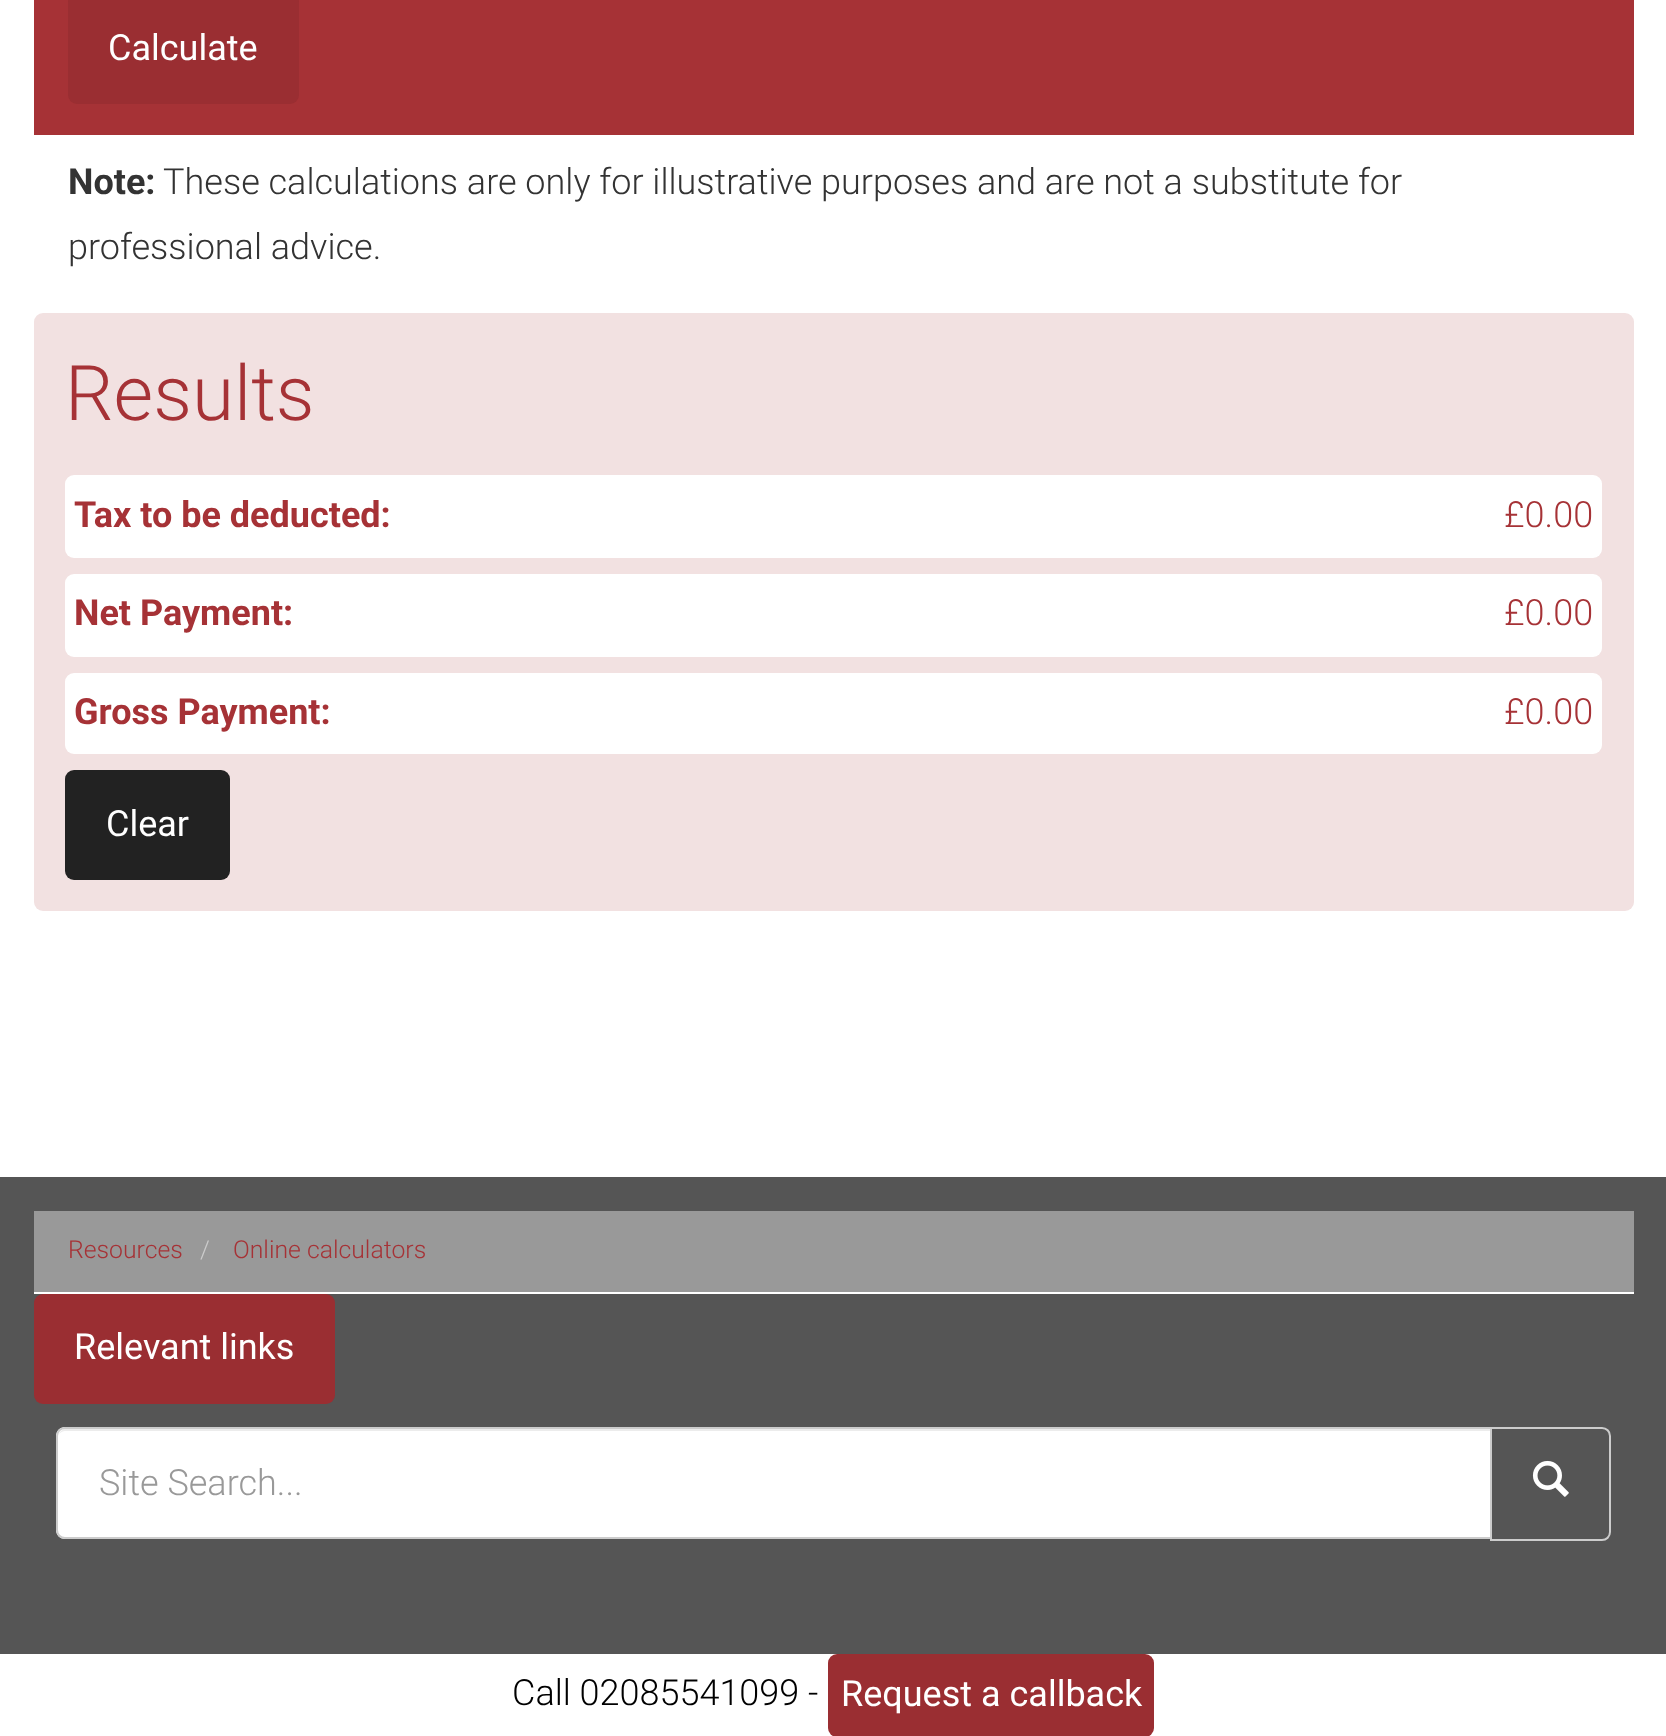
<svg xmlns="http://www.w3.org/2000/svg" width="1666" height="1736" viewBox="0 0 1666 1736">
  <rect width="100%" height="100%" fill="#555555"/>
  <rect x="0" y="0" width="1666" height="1177" fill="#ffffff"/>
  <rect x="34" y="0" width="1600" height="135" fill="#a63236"/>
  <rect x="68" y="-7" width="231" height="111" rx="9" fill="#9a2e32"/>
  <text x="108" y="60" font-family="Roboto" font-size="36" fill="#ffffff">Calculate</text>
  <text x="68" y="194" font-family="Roboto" font-size="36" font-weight="bold" fill="#333333">Note:</text>
  <text x="163" y="194" font-family="Roboto" font-size="36" font-weight="300" fill="#333333">These calculations are only for illustrative purposes and are not a substitute for</text>
  <text x="68" y="259" font-family="Roboto" font-size="36" font-weight="300" fill="#333333">professional advice.</text>
  <rect x="34" y="313" width="1600" height="598" rx="9" fill="#f2e1e1"/>
  <text x="65" y="420" font-family="Roboto" font-size="76.5" font-weight="300" fill="#a63236">Results</text>
  <rect x="65" y="475" width="1537" height="83" rx="9" fill="#ffffff"/>
  <text x="74" y="527" font-family="Roboto" font-size="36" font-weight="bold" fill="#a63236">Tax to be deducted:</text>
  <text x="1504" y="527" font-family="Roboto" font-size="36" font-weight="300" fill="#a63236">£0.00</text>
  <rect x="65" y="574" width="1537" height="83" rx="9" fill="#ffffff"/>
  <text x="74" y="625" font-family="Roboto" font-size="36" font-weight="bold" fill="#a63236">Net Payment:</text>
  <text x="1504" y="625" font-family="Roboto" font-size="36" font-weight="300" fill="#a63236">£0.00</text>
  <rect x="65" y="673" width="1537" height="81" rx="9" fill="#ffffff"/>
  <text x="74" y="724" font-family="Roboto" font-size="36" font-weight="bold" fill="#a63236">Gross Payment:</text>
  <text x="1504" y="724" font-family="Roboto" font-size="36" font-weight="300" fill="#a63236">£0.00</text>
  <rect x="65" y="770" width="165" height="110" rx="9" fill="#222222"/>
  <text x="106" y="836" font-family="Roboto" font-size="36" fill="#ffffff">Clear</text>
  <rect x="34" y="1211" width="1600" height="81" fill="#999999"/>
  <rect x="34" y="1292" width="1600" height="2" fill="#ffffff"/>
  <text x="68" y="1258" font-family="Roboto" font-size="24.75" font-weight="300" fill="#a63236">Resources</text>
  <text x="200" y="1258" font-family="Roboto" font-size="24.75" font-weight="300" fill="#cccccc">/</text>
  <text x="233" y="1258" font-family="Roboto" font-size="24.75" font-weight="300" fill="#a63236">Online calculators</text>
  <rect x="34" y="1294" width="301" height="110" rx="9" fill="#9a2e32"/>
  <text x="74" y="1359" font-family="Roboto" font-size="36" fill="#ffffff">Relevant links</text>
  <path d="M1491 1428H1602C1606.5 1428 1610 1431.5 1610 1436V1532C1610 1536.5 1606.5 1540 1602 1540H1491Z" fill="none" stroke="#cccccc" stroke-width="2"/>
  <path d="M65 1427H1492V1539H65C60 1539 56 1535 56 1530V1436C56 1431 60 1427 65 1427Z" fill="#ffffff"/>
  <path d="M65 1431H1490V1429H66C63 1429 60 1431 59 1434C61 1432 63 1431 65 1431Z" fill="#ececec"/>
  <path d="M65 1428H1491V1538H65C60.5 1538 57 1534.5 57 1530V1436C57 1431.5 60.5 1428 65 1428Z" fill="none" stroke="#cccccc" stroke-width="2"/>
  <text x="99" y="1495" font-family="Roboto" font-size="36" font-weight="300" fill="#999999">Site Search...</text>
  <image x="1532" y="1460" width="37" height="37" href="img1.png"/>
  <rect x="0" y="1654" width="1666" height="82" fill="#ffffff"/>
  <text x="512" y="1705" font-family="Roboto" font-size="36" font-weight="300" fill="#000000">Call 02085541099 -</text>
  <rect x="828" y="1654" width="326" height="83" rx="9" fill="#9a2e32"/>
  <text x="841" y="1706" font-family="Roboto" font-size="36" fill="#ffffff">Request a callback</text>
</svg>
